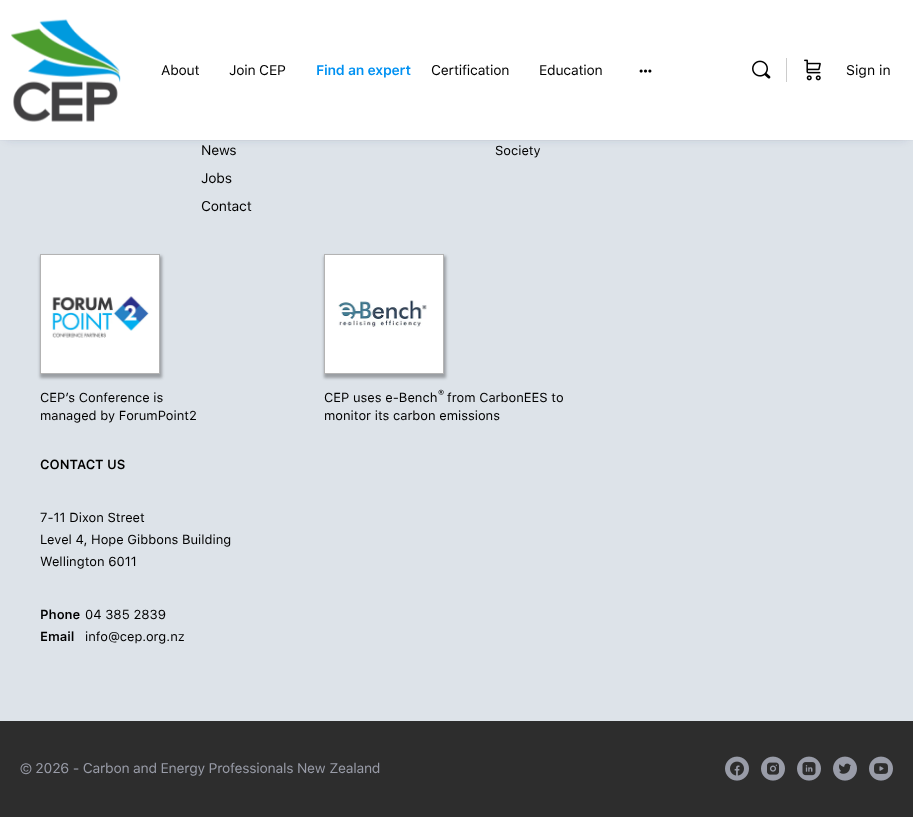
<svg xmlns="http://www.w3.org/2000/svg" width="913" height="817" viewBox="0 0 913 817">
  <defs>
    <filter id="blur1" x="-50%" y="-200%" width="200%" height="500%"><feGaussianBlur stdDeviation="5"/></filter>
    <filter id="blur2" x="-50%" y="-200%" width="200%" height="500%"><feGaussianBlur stdDeviation="1.5"/></filter>
  </defs>
  <rect width="100%" height="100%" fill="#dde3e9"/>
  <rect x="7" y="12" width="899" height="126" fill="#41476c" fill-opacity="0.25" filter="url(#blur1)"/>
  <rect x="0" y="140" width="913" height="1" fill="#8b8d9d" fill-opacity="0.05"/>
  <rect x="0" y="0" width="913" height="140" fill="#ffffff"/>
  <image x="11" y="19" width="110" height="103" href="img1.png"/>
  <text x="161" y="75" font-family="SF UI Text" font-size="14" letter-spacing="-0.25" fill="#000000">About</text>
  <text x="229" y="75" font-family="SF UI Text" font-size="14" letter-spacing="-0.25" fill="#000000">Join CEP</text>
  <text x="316" y="75" font-family="SF UI Text" font-size="14" font-weight="600" letter-spacing="-0.25" fill="#0091f2">Find an expert</text>
  <text x="431" y="75" font-family="SF UI Text" font-size="14" letter-spacing="-0.25" fill="#000000">Certification</text>
  <text x="539" y="75" font-family="SF UI Text" font-size="14" letter-spacing="-0.25" fill="#000000">Education</text>
  <image x="639" y="69" width="13" height="4" href="img2.png"/>
  <image x="752" y="60" width="19" height="19" href="img3.png"/>
  <rect x="786" y="58" width="1" height="24" fill="#cccccc"/>
  <image x="804" y="59" width="17" height="22" href="img4.png"/>
  <text x="846" y="75" font-family="SF UI Text" font-size="14" fill="#000000">Sign in</text>
  <text x="201" y="155" font-family="SF UI Text" font-size="14" letter-spacing="-0.25" fill="#000000">News</text>
  <text x="201" y="183" font-family="SF UI Text" font-size="14" letter-spacing="-0.25" fill="#000000">Jobs</text>
  <text x="201" y="211" font-family="SF UI Text" font-size="14" letter-spacing="-0.25" fill="#000000">Contact</text>
  <text x="495" y="155" font-family="SF UI Text" font-size="13" fill="#000000">Society</text>
  <rect x="40" y="256" width="122" height="122" fill="#000000" fill-opacity="0.3" filter="url(#blur2)"/>
  <rect x="40.5" y="254.5" width="119" height="119" fill="#ffffff" stroke="#b3b3b3"/>
  <image x="52" y="296" width="97" height="42" href="img5.png"/>
  <text x="40" y="402" font-family="SF UI Text" font-size="13" fill="#000000">CEP’s Conference is</text>
  <text x="40" y="420" font-family="SF UI Text" font-size="13" fill="#000000">managed by ForumPoint2</text>
  <rect x="324" y="256" width="122" height="122" fill="#000000" fill-opacity="0.3" filter="url(#blur2)"/>
  <rect x="324.5" y="254.5" width="119" height="119" fill="#ffffff" stroke="#b3b3b3"/>
  <image x="338" y="300" width="89" height="27" href="img6.png"/>
  <text x="324" y="402" font-family="SF UI Text" font-size="13" fill="#000000">CEP uses e-Bench</text>
  <text x="438" y="397" font-family="SF UI Text" font-size="10" fill="#000000">®</text>
  <text x="447" y="402" font-family="SF UI Text" font-size="13" fill="#000000">from CarbonEES to</text>
  <text x="324" y="420" font-family="SF UI Text" font-size="13" fill="#000000">monitor its carbon emissions</text>
  <text x="40" y="469" font-family="SF UI Text" font-size="13" font-weight="600" fill="#000000">CONTACT US</text>
  <text x="40" y="522" font-family="SF UI Text" font-size="13" fill="#000000">7-11 Dixon Street</text>
  <text x="40" y="544" font-family="SF UI Text" font-size="13" fill="#000000">Level 4, Hope Gibbons Building</text>
  <text x="40" y="566" font-family="SF UI Text" font-size="13" fill="#000000">Wellington 6011</text>
  <text x="40" y="619" font-family="SF UI Text" font-size="13" font-weight="600" fill="#000000">Phone</text>
  <text x="85" y="619" font-family="SF UI Text" font-size="13" fill="#000000">04 385 2839</text>
  <text x="40" y="641" font-family="SF UI Text" font-size="13" font-weight="600" fill="#000000">Email</text>
  <text x="85" y="641" font-family="SF UI Text" font-size="13" fill="#000000">info@cep.org.nz</text>
  <rect x="0" y="721" width="913" height="96" fill="#2d2d2d"/>
  <text x="20" y="773" font-family="SF UI Text" font-size="14" letter-spacing="-0.25" fill="#999ca8">© 2026 - Carbon and Energy Professionals New Zealand</text>
  <image x="725" y="756" width="24" height="25" href="img7.png"/>
  <image x="761" y="756" width="24" height="25" href="img8.png"/>
  <image x="797" y="756" width="24" height="25" href="img9.png"/>
  <image x="833" y="756" width="24" height="25" href="img10.png"/>
  <image x="869" y="756" width="24" height="25" href="img11.png"/>
</svg>
